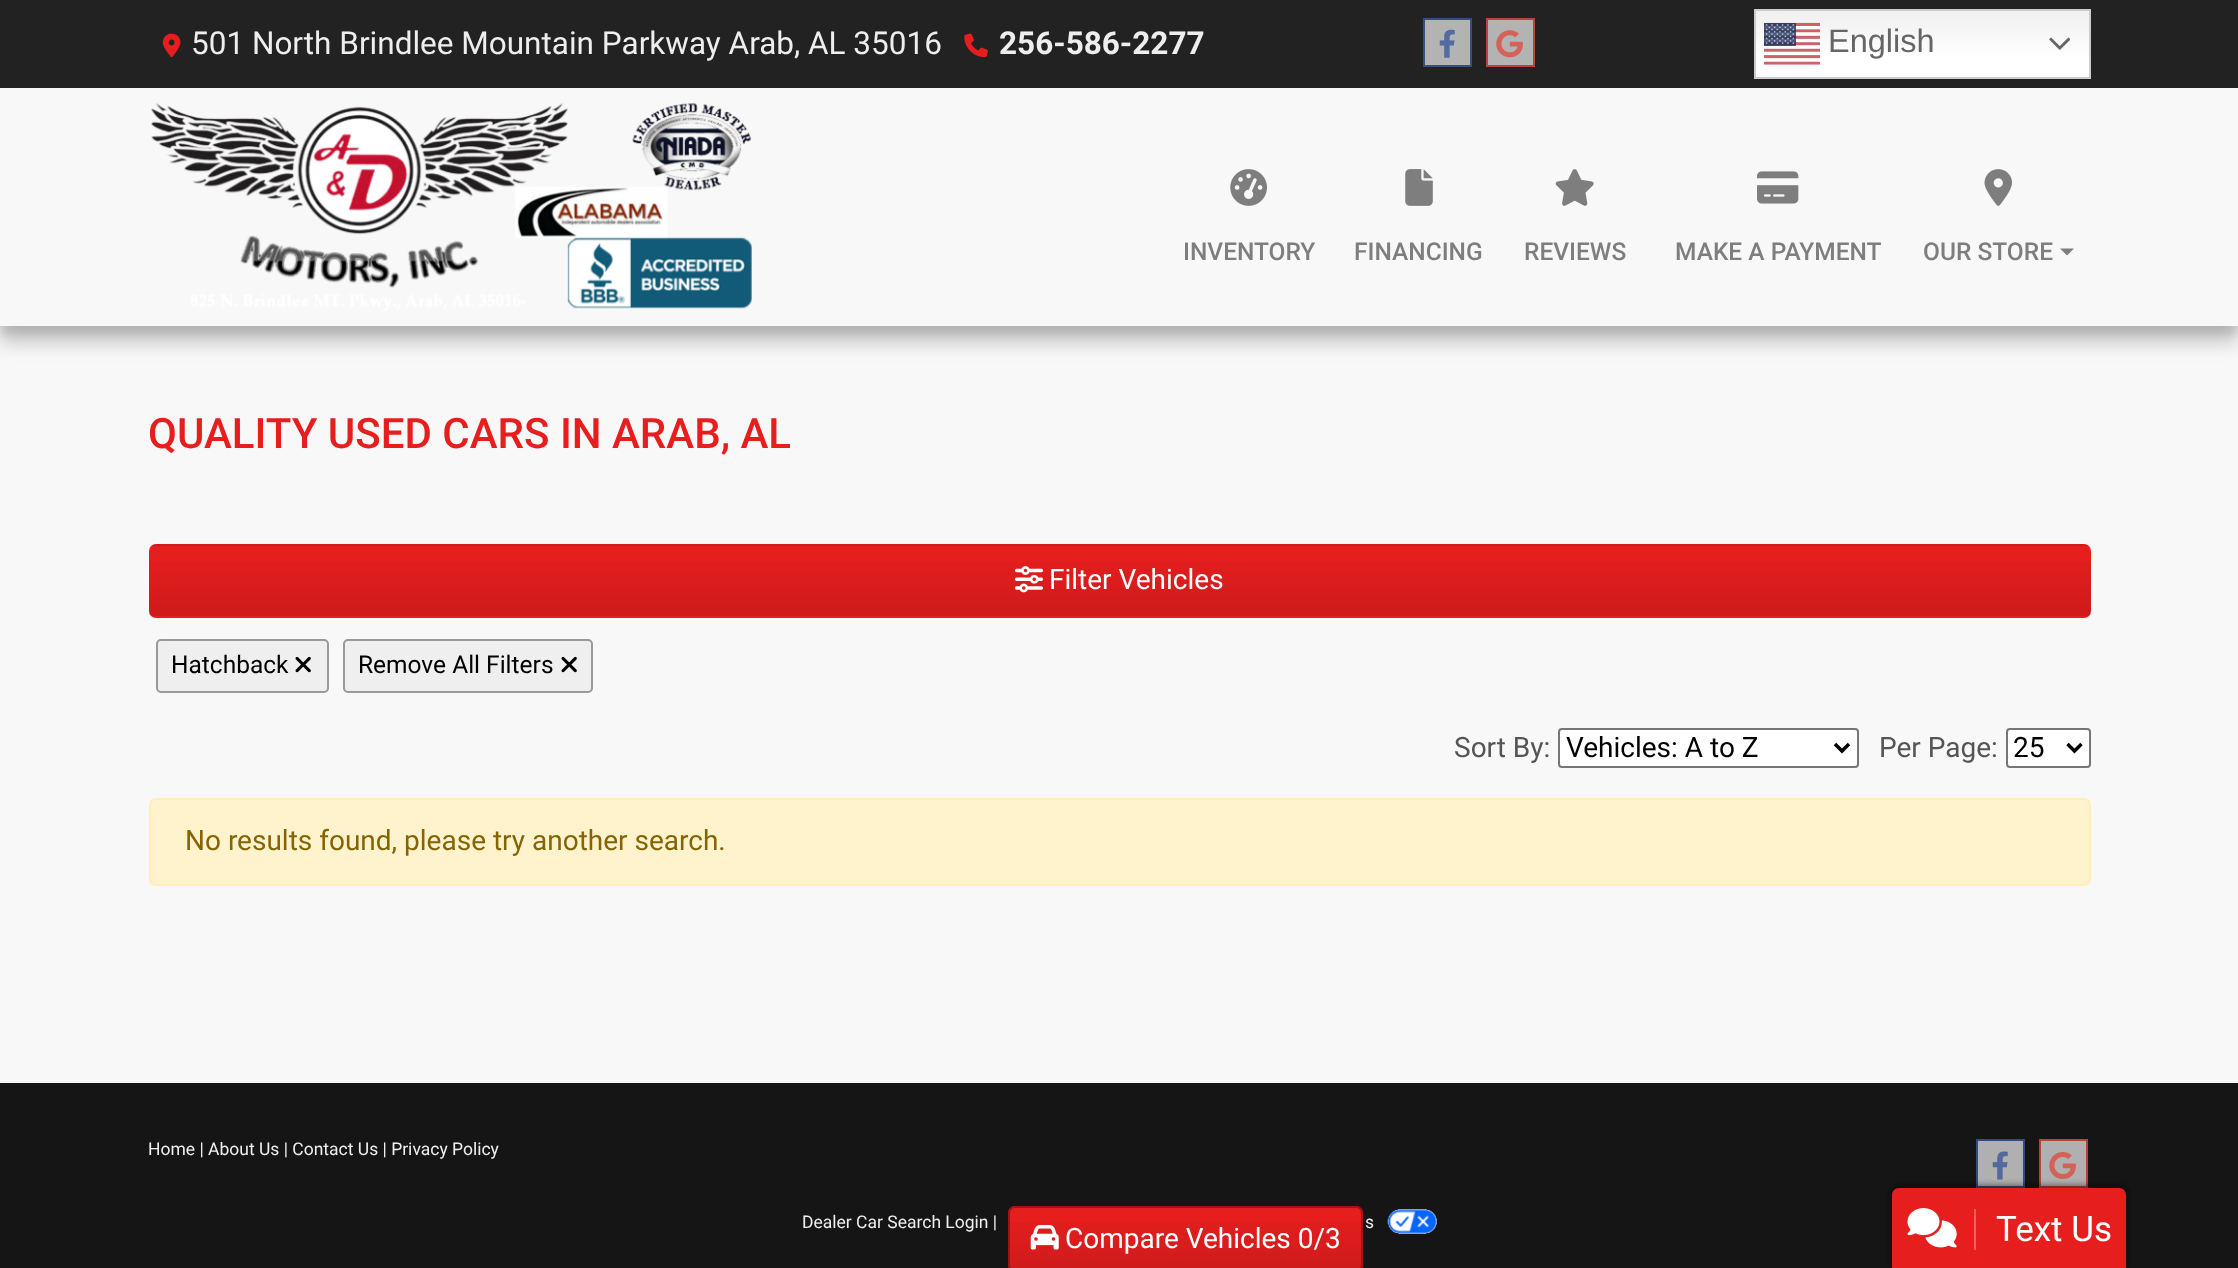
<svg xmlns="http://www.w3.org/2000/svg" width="2238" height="1268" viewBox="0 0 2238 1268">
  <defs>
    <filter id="blur1" x="-50%" y="-200%" width="200%" height="500%"><feGaussianBlur stdDeviation="4.5"/></filter>
    <filter id="blur2" x="-50%" y="-200%" width="200%" height="500%"><feGaussianBlur stdDeviation="9"/></filter>
    <linearGradient id="g1" gradientUnits="userSpaceOnUse" x1="1922" y1="9" x2="1922" y2="79"><stop offset="0" stop-color="#efefef"/><stop offset="0.7" stop-color="#ffffff"/></linearGradient>
    <clipPath id="clip1"><rect x="149" y="544" width="1942" height="74" rx="7"/></clipPath>
    <linearGradient id="g2" gradientUnits="userSpaceOnUse" x1="1120" y1="476" x2="1120" y2="546"><stop offset="0" stop-color="#000000" stop-opacity="0"/><stop offset="1" stop-color="#000000" stop-opacity="0.1"/></linearGradient>
    <linearGradient id="g3" gradientUnits="userSpaceOnUse" x1="1120" y1="546" x2="1120" y2="616"><stop offset="0" stop-color="#000000" stop-opacity="0"/><stop offset="1" stop-color="#000000" stop-opacity="0.1"/></linearGradient>
    <linearGradient id="g4" gradientUnits="userSpaceOnUse" x1="1186" y1="1208" x2="1186" y2="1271"><stop offset="0" stop-color="#000000" stop-opacity="0"/><stop offset="1" stop-color="#000000" stop-opacity="0.1"/></linearGradient>
    <filter id="blur3" x="-50%" y="-200%" width="200%" height="500%"><feGaussianBlur stdDeviation="2"/></filter>
    <filter id="blur4" x="-50%" y="-200%" width="200%" height="500%"><feGaussianBlur stdDeviation="2.5"/></filter>
  </defs>
  <rect width="100%" height="100%" fill="#f8f8f8"/>
  <rect x="0" y="9" width="2238" height="325" fill="#000000" fill-opacity="0.1" filter="url(#blur1)"/>
  <rect x="0" y="18" width="2238" height="325" fill="#000000" fill-opacity="0.2" filter="url(#blur2)"/>
  <rect x="0" y="88" width="2238" height="238" fill="#f8f8f8"/>
  <rect x="0" y="0" width="2238" height="88" fill="#222222"/>
  <image x="162" y="33" width="19" height="25" href="img1.png"/>
  <text x="191" y="54" font-family="Roboto" font-size="31.5" fill="#eeeeee">501 North Brindlee Mountain Parkway Arab, AL 35016</text>
  <image x="964" y="33" width="24" height="25" href="img2.png"/>
  <text x="999" y="54" font-family="Roboto" font-size="31.5" font-weight="bold" fill="#eeeeee">256-586-2277</text>
  <rect x="1424" y="19" width="47" height="47" fill="#cdcdcd" fill-opacity="0.85" stroke="#364e80" stroke-width="2"/>
  <image x="1439" y="29" width="16" height="29" href="img3.png"/>
  <rect x="1487" y="19" width="47" height="47" fill="#cdcdcd" fill-opacity="0.85" stroke="#b7453b" stroke-width="2"/>
  <image x="1496" y="30" width="27" height="28" href="img4.png"/>
  <rect x="1756" y="11" width="333" height="66" fill="url(#g1)"/>
  <rect x="1755" y="10" width="335" height="68" fill="none" stroke="#cccccc" stroke-width="2"/>
  <image x="1764" y="22" width="56" height="43" href="img5.png"/>
  <text x="1828" y="52" font-family="Liberation Sans" font-size="32.5" fill="#666666">English</text>
  <image x="2049" y="37" width="21" height="13" href="img6.png"/>
  <image x="151" y="103" width="601" height="208" href="img7.png"/>
  <image x="1230" y="169" width="37" height="37" href="img8.png"/>
  <text x="1183" y="260" font-family="Roboto" font-size="24.5" font-weight="500" fill="#7e7e7e">INVENTORY</text>
  <image x="1405" y="169" width="28" height="37" href="img9.png"/>
  <text x="1354" y="260" font-family="Roboto" font-size="24.5" font-weight="500" fill="#7e7e7e">FINANCING</text>
  <image x="1555" y="169" width="39" height="37" href="img10.png"/>
  <text x="1524" y="260" font-family="Roboto" font-size="24.5" font-weight="500" fill="#7e7e7e">REVIEWS</text>
  <image x="1757" y="171" width="42" height="33" href="img11.png"/>
  <text x="1675" y="260" font-family="Roboto" font-size="24.5" font-weight="500" fill="#7e7e7e">MAKE A PAYMENT</text>
  <image x="1984" y="169" width="28" height="37" href="img12.png"/>
  <text x="1923" y="260" font-family="Roboto" font-size="24.5" font-weight="500" fill="#7e7e7e">OUR STORE</text>
  <path d="M2060 248.5H2074L2067 255.5Z" fill="#7e7e7e"/>
  <text x="148" y="448" font-family="Roboto" font-size="42" font-weight="500" fill="#e61e1e">QUALITY USED CARS IN ARAB, AL</text>
  <rect x="149" y="544" width="1942" height="74" rx="7" fill="#e61e1e"/>
  <g clip-path="url(#clip1)">
    <rect x="149" y="544" width="1942" height="2" fill="url(#g2)"/>
    <rect x="149" y="561" width="1942" height="55" fill="url(#g3)"/>
  </g>
  <image x="1015" y="566" width="28" height="27" href="img13.png"/>
  <text x="1049" y="589" font-family="Roboto" font-size="28" fill="#ffffff">Filter Vehicles</text>
  <rect x="157" y="640" width="171" height="52" rx="4" fill="#efefef" stroke="#999999" stroke-width="2"/>
  <text x="171" y="673" font-family="Roboto" font-size="24.5" fill="#000000">Hatchback</text>
  <image x="295" y="656" width="16" height="17" href="img14.png"/>
  <rect x="344" y="640" width="248" height="52" rx="4" fill="#efefef" stroke="#999999" stroke-width="2"/>
  <text x="358" y="673" font-family="Roboto" font-size="24.5" fill="#000000">Remove All Filters</text>
  <image x="561" y="656" width="16" height="17" href="img14.png"/>
  <text x="1454" y="757" font-family="Roboto" font-size="28" fill="#555555">Sort By:</text>
  <rect x="1559" y="729" width="299" height="38" rx="3" fill="#ffffff" stroke="#767676" stroke-width="2"/>
  <path d="M1835 744L1842 751L1849 744" fill="none" stroke="#000000" stroke-width="3.5"/>
  <text x="1566" y="757" font-family="Roboto" font-size="28" fill="#000000">Vehicles: A to Z</text>
  <text x="1879" y="757" font-family="Roboto" font-size="28" fill="#555555">Per Page:</text>
  <rect x="2007" y="729" width="83" height="38" rx="3" fill="#ffffff" stroke="#767676" stroke-width="2"/>
  <path d="M2067.5 744L2074.5 751L2081.5 744" fill="none" stroke="#000000" stroke-width="3.5"/>
  <text x="2013" y="757" font-family="Roboto" font-size="28" fill="#000000">25</text>
  <rect x="150" y="799" width="1940" height="86" rx="6" fill="#fff3cd" stroke="#ffeeba" stroke-width="2"/>
  <text x="185" y="850" font-family="Roboto" font-size="28" fill="#856404">No results found, please try another search.</text>
  <rect x="0" y="1083" width="2238" height="185" fill="#151515"/>
  <rect x="1008" y="1206" width="355" height="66" rx="7" fill="#e61e1e"/>
  <rect x="1008" y="1222" width="355" height="46" fill="url(#g4)"/>
  <rect x="1009" y="1207" width="353" height="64" rx="6" fill="none" stroke="#a51212" stroke-width="2"/>
  <image x="1030" y="1225" width="29" height="25" href="img15.png"/>
  <text x="1065" y="1248" font-family="Roboto" font-size="28" fill="#ffffff">Compare Vehicles 0/3</text>
  <text x="148" y="1155" font-family="Roboto" font-size="17.5" fill="#eeeeee">Home | About Us | Contact Us | Privacy Policy</text>
  <rect x="1977" y="1140" width="47" height="47" fill="#b0b0b0" stroke="#334b7e" stroke-width="2"/>
  <image x="1992" y="1151" width="16" height="29" href="img16.png"/>
  <rect x="2040" y="1140" width="47" height="47" fill="#b0b0b0" stroke="#b44338" stroke-width="2"/>
  <image x="2049" y="1152" width="27" height="27" href="img17.png"/>
  <text x="802" y="1228" font-family="Roboto" font-size="17.5" fill="#eeeeee">Dealer Car Search Login |</text>
  <text x="1365" y="1228" font-family="Roboto" font-size="17.5" fill="#eeeeee">s</text>
  <image x="1387" y="1209" width="50" height="25" href="img18.png"/>
  <rect x="1890" y="1185" width="238" height="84" rx="9" fill="#000000" fill-opacity="0.25" filter="url(#blur3)"/>
  <rect x="1888" y="1183" width="242" height="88" rx="11" fill="#000000" fill-opacity="0.15" filter="url(#blur4)"/>
  <path d="M1899 1188H2119C2123 1188 2126 1191 2126 1195V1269H1892V1195C1892 1191 1895 1188 1899 1188Z" fill="#e61e1e"/>
  <rect x="1974" y="1209" width="2" height="41" fill="#ee6262"/>
  <image x="1907" y="1208" width="50" height="40" href="img19.png"/>
  <text x="1996" y="1241" font-family="Roboto" font-size="35" fill="#ffffff">Text Us</text>
</svg>
